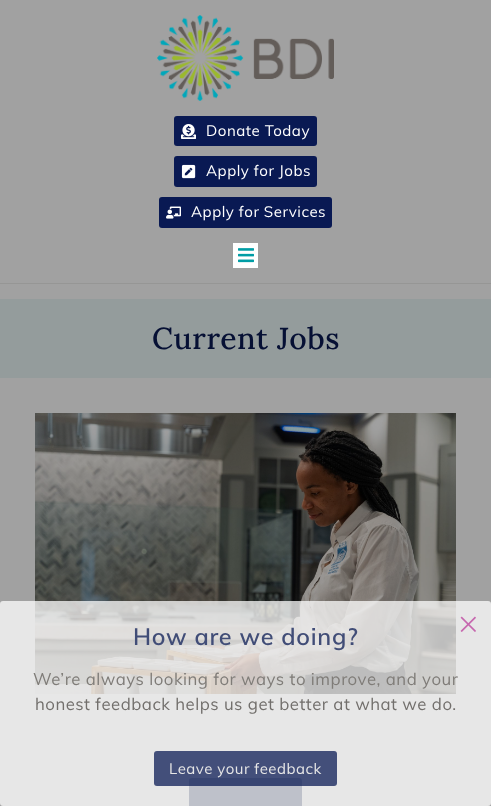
<svg xmlns="http://www.w3.org/2000/svg" width="491" height="806" viewBox="0 0 491 806">
  <rect width="100%" height="100%" fill="#a1a1a1"/>
  <image x="157" y="15" width="177" height="86" href="img1.png"/>
  <rect x="174" y="116" width="143" height="30" rx="3" fill="#091953"/>
  <image x="181" y="124" width="15" height="15" href="img2.png"/>
  <text x="206" y="136" font-family="Muli" font-size="15.1" letter-spacing="0.5" fill="#ffffff">Donate Today</text>
  <rect x="174" y="156" width="143" height="31" rx="3" fill="#091953"/>
  <image x="181" y="164" width="15" height="15" href="img3.png"/>
  <text x="206" y="176" font-family="Muli" font-size="15.1" letter-spacing="0.5" fill="#ffffff">Apply for Jobs</text>
  <rect x="159" y="197" width="173" height="31" rx="3" fill="#091953"/>
  <image x="166" y="206" width="15" height="13" href="img4.png"/>
  <text x="191" y="217" font-family="Muli" font-size="15.1" letter-spacing="0.5" fill="#ffffff">Apply for Services</text>
  <rect x="0" y="283" width="491" height="1" fill="#969695"/>
  <rect x="233" y="243" width="25" height="25" fill="#ffffff"/>
  <image x="238" y="248" width="16" height="15" href="img5.png"/>
  <rect x="0" y="299" width="491" height="79" fill="#949c9c"/>
  <text x="152" y="349" font-family="Lora" font-size="30.25" font-weight="500" letter-spacing="0.5" fill="#061034">Current Jobs</text>
  <image x="35" y="413" width="421" height="281" href="img6.png"/>
  <rect x="189" y="778" width="113" height="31" rx="3" fill="#061034"/>
  <rect x="0" y="601" width="491" height="205" rx="3" fill="#ffffff" fill-opacity="0.74"/>
  <image x="460" y="616" width="16" height="16" href="img7.png"/>
  <text x="133" y="645" font-family="Muli" font-size="23.5" font-weight="600" letter-spacing="0.75" fill="#414d77">How are we doing?</text>
  <text x="33" y="685" font-family="Muli" font-size="16.8" letter-spacing="0.5" fill="#7f7c78">We’re always looking for ways to improve, and your</text>
  <text x="35" y="710" font-family="Muli" font-size="16.8" letter-spacing="0.5" fill="#726f6c">honest feedback helps us get better at what we do.</text>
  <rect x="154" y="751" width="183" height="35" rx="3" fill="#091953" fill-opacity="0.74"/>
  <text x="169" y="774" font-family="Muli" font-size="15" letter-spacing="0.5" fill="#e6e6e6">Leave your feedback</text>
</svg>
